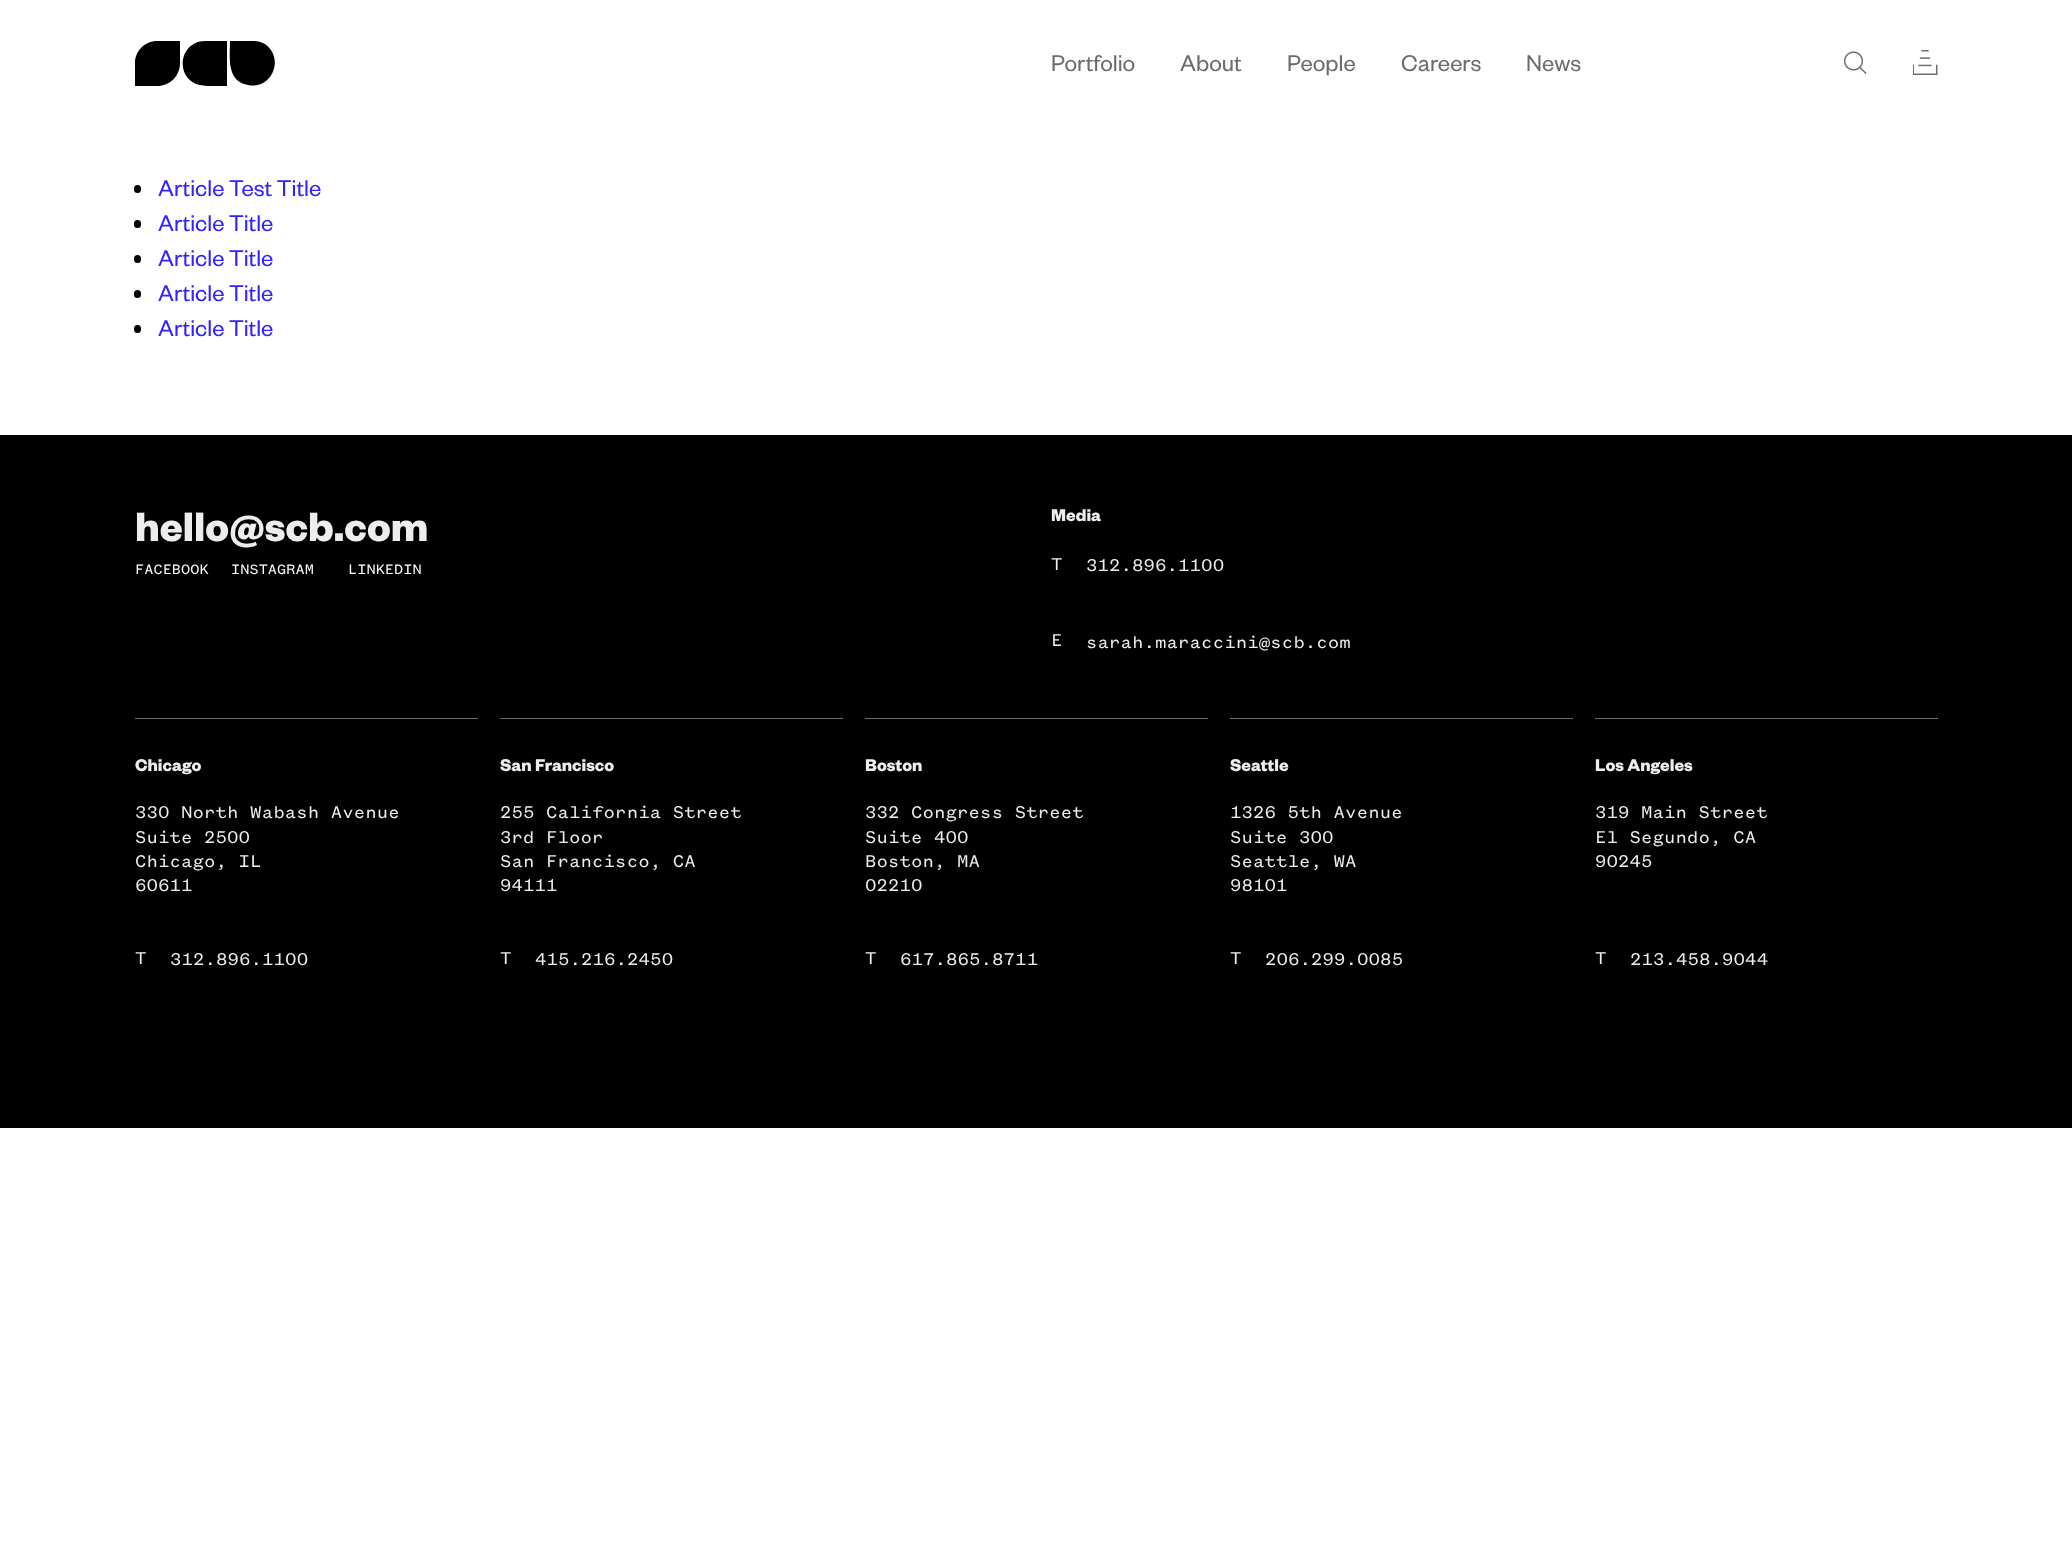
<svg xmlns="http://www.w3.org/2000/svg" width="2072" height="1545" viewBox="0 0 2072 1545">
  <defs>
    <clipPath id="clip1"><rect x="135" y="40" width="141" height="46"/></clipPath>
  </defs>
  <rect width="100%" height="100%" fill="#ffffff"/>
  <g clip-path="url(#clip1)">
    <path d="M157 41C145 41 135 51 135 63V86H157C170 86 180 76 180 63V41ZM205 41C181 41 174 74 196 84C204 87 219 86 227 86V41ZM253 41H230C230 57 226 81 248 85C272 90 285 58 265 44C261 42 257 41 253 41Z" fill="#000000"/>
  </g>
  <text x="1051" y="71" font-family="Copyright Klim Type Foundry" font-size="25" fill="#6c6c6c">Portfolio</text>
  <text x="1180" y="71" font-family="Copyright Klim Type Foundry" font-size="25" fill="#6c6c6c">About</text>
  <text x="1287" y="71" font-family="Copyright Klim Type Foundry" font-size="25" fill="#6c6c6c">People</text>
  <text x="1401" y="71" font-family="Copyright Klim Type Foundry" font-size="25" fill="#6c6c6c">Careers</text>
  <text x="1526" y="71" font-family="Copyright Klim Type Foundry" font-size="25" fill="#6c6c6c">News</text>
  <image x="1844" y="51" width="23" height="23" href="img1.png"/>
  <image x="1913" y="50" width="25" height="25" href="img2.png"/>
  <rect x="134" y="185" width="7" height="8" rx="3.5" fill="#000000"/>
  <text x="158" y="196" font-family="Copyright Klim Type Foundry" font-size="25" fill="#3122ff">Article Test Title</text>
  <rect x="134" y="220" width="7" height="8" rx="3.5" fill="#000000"/>
  <text x="158" y="231" font-family="Copyright Klim Type Foundry" font-size="25" fill="#3122ff">Article Title</text>
  <rect x="134" y="255" width="7" height="8" rx="3.5" fill="#000000"/>
  <text x="158" y="266" font-family="Copyright Klim Type Foundry" font-size="25" fill="#3122ff">Article Title</text>
  <rect x="134" y="290" width="7" height="8" rx="3.5" fill="#000000"/>
  <text x="158" y="301" font-family="Copyright Klim Type Foundry" font-size="25" fill="#3122ff">Article Title</text>
  <rect x="134" y="325" width="7" height="8" rx="3.5" fill="#000000"/>
  <text x="158" y="336" font-family="Copyright Klim Type Foundry" font-size="25" fill="#3122ff">Article Title</text>
  <rect x="0" y="435" width="2072" height="693" fill="#000000"/>
  <text x="135" y="541" font-family="Copyright Klim Type Foundry" font-size="45" font-weight="bold" fill="#ededed">hello@scb.com</text>
  <text x="135" y="574" font-family="'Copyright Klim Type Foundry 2'" font-size="15" fill="#ffffff">FACEBOOK</text>
  <text x="231" y="574" font-family="'Copyright Klim Type Foundry 2'" font-size="15" fill="#ffffff">INSTAGRAM</text>
  <text x="348" y="574" font-family="'Copyright Klim Type Foundry 2'" font-size="15" fill="#ffffff">LINKEDIN</text>
  <text x="1051" y="521" font-family="Copyright Klim Type Foundry" font-size="18.75" font-weight="bold" fill="#ededed">Media</text>
  <text x="1051" y="570" font-family="'Copyright Klim Type Foundry 2'" font-size="18.75" fill="#ededed">T</text>
  <text x="1086" y="571" font-family="'Copyright Klim Type Foundry 2'" font-size="18.75" fill="#ededed">312.896.1100</text>
  <text x="1051" y="646" font-family="'Copyright Klim Type Foundry 2'" font-size="18.75" fill="#ededed">E</text>
  <text x="1086" y="648" font-family="'Copyright Klim Type Foundry 2'" font-size="18.75" fill="#ededed">sarah.maraccini@scb.com</text>
  <rect x="135" y="718" width="343" height="1" fill="#6c6c6c"/>
  <text x="135" y="771" font-family="Copyright Klim Type Foundry" font-size="18.75" font-weight="bold" fill="#ededed">Chicago</text>
  <text x="135" y="818" font-family="'Copyright Klim Type Foundry 2'" font-size="18.75" fill="#ededed">330 North Wabash Avenue</text>
  <text x="135" y="843" font-family="'Copyright Klim Type Foundry 2'" font-size="18.75" fill="#ededed">Suite 2500</text>
  <text x="135" y="867" font-family="'Copyright Klim Type Foundry 2'" font-size="18.75" fill="#ededed">Chicago, IL</text>
  <text x="135" y="891" font-family="'Copyright Klim Type Foundry 2'" font-size="18.75" fill="#ededed">60611</text>
  <text x="135" y="964" font-family="'Copyright Klim Type Foundry 2'" font-size="18.75" fill="#ededed">T</text>
  <text x="170" y="965" font-family="'Copyright Klim Type Foundry 2'" font-size="18.75" fill="#ededed">312.896.1100</text>
  <rect x="500" y="718" width="343" height="1" fill="#6c6c6c"/>
  <text x="500" y="771" font-family="Copyright Klim Type Foundry" font-size="18.75" font-weight="bold" fill="#ededed">San Francisco</text>
  <text x="500" y="818" font-family="'Copyright Klim Type Foundry 2'" font-size="18.75" fill="#ededed">255 California Street</text>
  <text x="500" y="843" font-family="'Copyright Klim Type Foundry 2'" font-size="18.75" fill="#ededed">3rd Floor</text>
  <text x="500" y="867" font-family="'Copyright Klim Type Foundry 2'" font-size="18.75" fill="#ededed">San Francisco, CA</text>
  <text x="500" y="891" font-family="'Copyright Klim Type Foundry 2'" font-size="18.75" fill="#ededed">94111</text>
  <text x="500" y="964" font-family="'Copyright Klim Type Foundry 2'" font-size="18.75" fill="#ededed">T</text>
  <text x="535" y="965" font-family="'Copyright Klim Type Foundry 2'" font-size="18.75" fill="#ededed">415.216.2450</text>
  <rect x="865" y="718" width="343" height="1" fill="#6c6c6c"/>
  <text x="865" y="771" font-family="Copyright Klim Type Foundry" font-size="18.75" font-weight="bold" fill="#ededed">Boston</text>
  <text x="865" y="818" font-family="'Copyright Klim Type Foundry 2'" font-size="18.75" fill="#ededed">332 Congress Street</text>
  <text x="865" y="843" font-family="'Copyright Klim Type Foundry 2'" font-size="18.75" fill="#ededed">Suite 400</text>
  <text x="865" y="867" font-family="'Copyright Klim Type Foundry 2'" font-size="18.75" fill="#ededed">Boston, MA</text>
  <text x="865" y="891" font-family="'Copyright Klim Type Foundry 2'" font-size="18.75" fill="#ededed">02210</text>
  <text x="865" y="964" font-family="'Copyright Klim Type Foundry 2'" font-size="18.75" fill="#ededed">T</text>
  <text x="900" y="965" font-family="'Copyright Klim Type Foundry 2'" font-size="18.75" fill="#ededed">617.865.8711</text>
  <rect x="1230" y="718" width="343" height="1" fill="#6c6c6c"/>
  <text x="1230" y="771" font-family="Copyright Klim Type Foundry" font-size="18.75" font-weight="bold" fill="#ededed">Seattle</text>
  <text x="1230" y="818" font-family="'Copyright Klim Type Foundry 2'" font-size="18.75" fill="#ededed">1326 5th Avenue</text>
  <text x="1230" y="843" font-family="'Copyright Klim Type Foundry 2'" font-size="18.75" fill="#ededed">Suite 300</text>
  <text x="1230" y="867" font-family="'Copyright Klim Type Foundry 2'" font-size="18.75" fill="#ededed">Seattle, WA</text>
  <text x="1230" y="891" font-family="'Copyright Klim Type Foundry 2'" font-size="18.75" fill="#ededed">98101</text>
  <text x="1230" y="964" font-family="'Copyright Klim Type Foundry 2'" font-size="18.75" fill="#ededed">T</text>
  <text x="1265" y="965" font-family="'Copyright Klim Type Foundry 2'" font-size="18.75" fill="#ededed">206.299.0085</text>
  <rect x="1595" y="718" width="343" height="1" fill="#6c6c6c"/>
  <text x="1595" y="771" font-family="Copyright Klim Type Foundry" font-size="18.75" font-weight="bold" fill="#ededed">Los Angeles</text>
  <text x="1595" y="818" font-family="'Copyright Klim Type Foundry 2'" font-size="18.75" fill="#ededed">319 Main Street</text>
  <text x="1595" y="843" font-family="'Copyright Klim Type Foundry 2'" font-size="18.75" fill="#ededed">El Segundo, CA</text>
  <text x="1595" y="867" font-family="'Copyright Klim Type Foundry 2'" font-size="18.75" fill="#ededed">90245</text>
  <text x="1595" y="964" font-family="'Copyright Klim Type Foundry 2'" font-size="18.75" fill="#ededed">T</text>
  <text x="1630" y="965" font-family="'Copyright Klim Type Foundry 2'" font-size="18.75" fill="#ededed">213.458.9044</text>
</svg>
